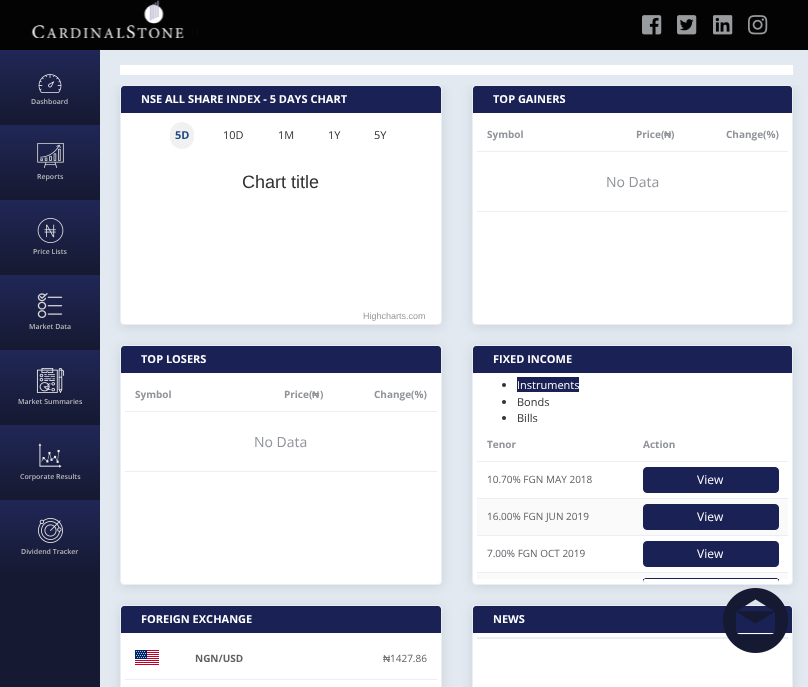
<svg xmlns="http://www.w3.org/2000/svg" width="808" height="687" viewBox="0 0 808 687">
  <defs>
    <linearGradient id="g1" gradientUnits="userSpaceOnUse" x1="50" y1="50" x2="50" y2="125"><stop offset="0" stop-color="#202756"/><stop offset="1" stop-color="#151931"/></linearGradient>
    <linearGradient id="g2" gradientUnits="userSpaceOnUse" x1="50" y1="125" x2="50" y2="200"><stop offset="0" stop-color="#202756"/><stop offset="1" stop-color="#151931"/></linearGradient>
    <linearGradient id="g3" gradientUnits="userSpaceOnUse" x1="50" y1="200" x2="50" y2="275"><stop offset="0" stop-color="#202756"/><stop offset="1" stop-color="#151931"/></linearGradient>
    <linearGradient id="g4" gradientUnits="userSpaceOnUse" x1="50" y1="275" x2="50" y2="350"><stop offset="0" stop-color="#202756"/><stop offset="1" stop-color="#151931"/></linearGradient>
    <linearGradient id="g5" gradientUnits="userSpaceOnUse" x1="50" y1="350" x2="50" y2="425"><stop offset="0" stop-color="#202756"/><stop offset="1" stop-color="#151931"/></linearGradient>
    <linearGradient id="g6" gradientUnits="userSpaceOnUse" x1="50" y1="425" x2="50" y2="500"><stop offset="0" stop-color="#202756"/><stop offset="1" stop-color="#151931"/></linearGradient>
    <linearGradient id="g7" gradientUnits="userSpaceOnUse" x1="50" y1="500" x2="50" y2="575"><stop offset="0" stop-color="#202756"/><stop offset="1" stop-color="#151931"/></linearGradient>
    <filter id="blur1" x="-50%" y="-200%" width="200%" height="500%"><feGaussianBlur stdDeviation="6"/></filter>
    <clipPath id="clip1"><rect x="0" y="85" width="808" height="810"/></clipPath>
    <clipPath id="clip2"><rect x="633" y="578" width="155" height="1"/></clipPath>
  </defs>
  <rect width="100%" height="100%" fill="#e2e9f1"/>
  <rect x="0" y="0" width="808" height="50" fill="#030303"/>
  <image x="31" y="0" width="167" height="38" href="img1.png"/>
  <image x="642" y="15" width="20" height="20" href="img2.png"/>
  <image x="677" y="15" width="20" height="20" href="img3.png"/>
  <image x="713" y="15" width="20" height="20" href="img4.png"/>
  <image x="748" y="15" width="20" height="20" href="img5.png"/>
  <rect x="120" y="65" width="673" height="10" fill="#ffffff"/>
  <rect x="0" y="575" width="100" height="112" fill="#151931"/>
  <rect x="0" y="50" width="100" height="75" fill="url(#g1)"/>
  <image x="38" y="74" width="24" height="19" href="img6.png"/>
  <text x="31" y="104" font-family="Open Sans" font-size="7" font-weight="600" fill="#b9b9b9">Dashboard</text>
  <rect x="0" y="125" width="100" height="75" fill="url(#g2)"/>
  <image x="37" y="143" width="27" height="25" href="img7.png"/>
  <text x="37" y="179" font-family="Open Sans" font-size="7" font-weight="600" fill="#b9b9b9">Reports</text>
  <rect x="0" y="200" width="100" height="75" fill="url(#g3)"/>
  <image x="37" y="218" width="27" height="25" href="img8.png"/>
  <text x="33" y="254" font-family="Open Sans" font-size="7" font-weight="600" fill="#b9b9b9">Price Lists</text>
  <rect x="0" y="275" width="100" height="75" fill="url(#g4)"/>
  <image x="37" y="293" width="26" height="25" href="img9.png"/>
  <text x="29" y="329" font-family="Open Sans" font-size="7" font-weight="600" fill="#b9b9b9">Market Data</text>
  <rect x="0" y="350" width="100" height="75" fill="url(#g5)"/>
  <image x="36" y="368" width="29" height="25" href="img10.png"/>
  <text x="18" y="404" font-family="Open Sans" font-size="7" font-weight="600" fill="#b9b9b9">Market Summaries</text>
  <rect x="0" y="425" width="100" height="75" fill="url(#g6)"/>
  <image x="38" y="443" width="24" height="25" href="img11.png"/>
  <text x="20" y="479" font-family="Open Sans" font-size="7" font-weight="600" fill="#b9b9b9">Corporate Results</text>
  <rect x="0" y="500" width="100" height="75" fill="url(#g7)"/>
  <image x="38" y="518" width="25" height="25" href="img12.png"/>
  <text x="21" y="554" font-family="Open Sans" font-size="7" font-weight="600" fill="#b9b9b9">Dividend Tracker</text>
  <rect x="472" y="347" width="321" height="240" rx="4" fill="#000000" fill-opacity="0.1" filter="url(#blur1)"/>
  <rect x="472" y="607" width="321" height="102" rx="4" fill="#000000" fill-opacity="0.1" filter="url(#blur1)"/>
  <rect x="472.5" y="605.5" width="320" height="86" rx="3.5" fill="#ffffff" stroke="#ebeef5"/>
  <path d="M476 606H789C790.5 606 792 607.5 792 609V633H473V609C473 607.5 474.5 606 476 606Z" fill="#1a2155"/>
  <rect x="477" y="637" width="311" height="2" fill="#ebeef5"/>
  <image x="723" y="588" width="65" height="65" href="img13.png"/>
  <g clip-path="url(#clip1)">
    <rect x="120" y="87" width="322" height="240" rx="4" fill="#000000" fill-opacity="0.1" filter="url(#blur1)"/>
  </g>
  <rect x="120.5" y="85.5" width="321" height="239" rx="3.5" fill="#ffffff" stroke="#ebeef5"/>
  <path d="M124 86H438C439.5 86 441 87.5 441 89V113H121V89C121 87.5 122.5 86 124 86Z" fill="#1a2155"/>
  <text x="141" y="103" font-family="Open Sans" font-size="11" font-weight="bold" fill="#ffffff">NSE ALL SHARE INDEX - 5 DAYS CHART</text>
  <rect x="170" y="122" width="24" height="27" rx="12" fill="#f1f1f1"/>
  <text x="175" y="139" font-family="Open Sans" font-size="11" font-weight="bold" fill="#1e4a87">5D</text>
  <text x="223" y="139" font-family="Open Sans" font-size="11" fill="#303133">10D</text>
  <text x="278" y="139" font-family="Open Sans" font-size="11" fill="#303133">1M</text>
  <text x="328" y="139" font-family="Open Sans" font-size="11" fill="#303133">1Y</text>
  <text x="374" y="139" font-family="Open Sans" font-size="11" fill="#303133">5Y</text>
  <text x="242" y="188" font-family="Liberation Sans" font-size="18" fill="#303133">Chart title</text>
  <text x="363" y="319" font-family="Liberation Sans" font-size="9" fill="#999999">Highcharts.com</text>
  <g clip-path="url(#clip1)">
    <rect x="472" y="87" width="321" height="240" rx="4" fill="#000000" fill-opacity="0.1" filter="url(#blur1)"/>
  </g>
  <rect x="472.5" y="85.5" width="320" height="239" rx="3.5" fill="#ffffff" stroke="#ebeef5"/>
  <path d="M476 86H789C790.5 86 792 87.5 792 89V113H473V89C473 87.5 474.5 86 476 86Z" fill="#1a2155"/>
  <text x="493" y="103" font-family="Open Sans" font-size="11" font-weight="bold" fill="#ffffff">TOP GAINERS</text>
  <rect x="477" y="151" width="311" height="1" fill="#ebeef5"/>
  <text x="487" y="138" font-family="Open Sans" font-size="10" font-weight="bold" fill="#909399">Symbol</text>
  <text x="636" y="138" font-family="Open Sans" font-size="10" font-weight="bold" fill="#909399">Price(</text>
  <text x="664" y="138" font-family="Liberation Sans" font-size="10" font-weight="bold" fill="#909399">₦</text>
  <text x="671" y="138" font-family="Open Sans" font-size="10" font-weight="bold" fill="#909399">)</text>
  <text x="726" y="138" font-family="Open Sans" font-size="10" font-weight="bold" fill="#909399">Change(%)</text>
  <text x="606" y="187" font-family="Open Sans" font-size="14" fill="#909399">No Data</text>
  <rect x="477" y="211" width="311" height="1" fill="#ebeef5"/>
  <rect x="120" y="347" width="322" height="240" rx="4" fill="#000000" fill-opacity="0.1" filter="url(#blur1)"/>
  <rect x="120.5" y="345.5" width="321" height="239" rx="3.5" fill="#ffffff" stroke="#ebeef5"/>
  <path d="M124 346H438C439.5 346 441 347.5 441 349V373H121V349C121 347.5 122.5 346 124 346Z" fill="#1a2155"/>
  <text x="141" y="363" font-family="Open Sans" font-size="11" font-weight="bold" fill="#ffffff">TOP LOSERS</text>
  <rect x="125" y="411" width="312" height="1" fill="#ebeef5"/>
  <text x="135" y="398" font-family="Open Sans" font-size="10" font-weight="bold" fill="#909399">Symbol</text>
  <text x="284" y="398" font-family="Open Sans" font-size="10" font-weight="bold" fill="#909399">Price(</text>
  <text x="312" y="398" font-family="Liberation Sans" font-size="10" font-weight="bold" fill="#909399">₦</text>
  <text x="320" y="398" font-family="Open Sans" font-size="10" font-weight="bold" fill="#909399">)</text>
  <text x="374" y="398" font-family="Open Sans" font-size="10" font-weight="bold" fill="#909399">Change(%)</text>
  <text x="254" y="447" font-family="Open Sans" font-size="14" fill="#909399">No Data</text>
  <rect x="125" y="471" width="312" height="1" fill="#ebeef5"/>
  <rect x="472.5" y="345.5" width="320" height="239" rx="3.5" fill="#ffffff" stroke="#ebeef5"/>
  <path d="M476 346H789C790.5 346 792 347.5 792 349V373H473V349C473 347.5 474.5 346 476 346Z" fill="#1a2155"/>
  <text x="493" y="363" font-family="Open Sans" font-size="11" font-weight="bold" fill="#ffffff">FIXED INCOME</text>
  <circle cx="504" cy="385" r="2" fill="#303133"/>
  <rect x="517" y="377" width="62" height="15" fill="#1a2155"/>
  <text x="517" y="389" font-family="Open Sans" font-size="11" fill="#ffffff">Instruments</text>
  <circle cx="504" cy="402" r="2" fill="#303133"/>
  <text x="517" y="406" font-family="Open Sans" font-size="11" fill="#303133">Bonds</text>
  <circle cx="504" cy="418" r="2" fill="#303133"/>
  <text x="517" y="422" font-family="Open Sans" font-size="11" fill="#303133">Bills</text>
  <rect x="477" y="461" width="311" height="1" fill="#ebeef5"/>
  <text x="487" y="448" font-family="Open Sans" font-size="10" font-weight="bold" fill="#909399">Tenor</text>
  <text x="643" y="448" font-family="Open Sans" font-size="10" font-weight="bold" fill="#909399">Action</text>
  <rect x="477" y="498" width="311" height="1" fill="#ebeef5"/>
  <text x="487" y="483" font-family="Open Sans" font-size="10" fill="#606266">10.70% FGN MAY 2018</text>
  <rect x="643.5" y="467.5" width="135" height="25" rx="3.5" fill="#1a2155" stroke="#1a2155"/>
  <text x="697" y="484" font-family="Open Sans" font-size="12" fill="#ffffff">View</text>
  <rect x="477" y="499" width="311" height="36" fill="#fafafa"/>
  <rect x="477" y="535" width="311" height="1" fill="#ebeef5"/>
  <text x="487" y="520" font-family="Open Sans" font-size="10" fill="#606266">16.00% FGN JUN 2019</text>
  <rect x="643.5" y="504.5" width="135" height="25" rx="3.5" fill="#1a2155" stroke="#1a2155"/>
  <text x="697" y="521" font-family="Open Sans" font-size="12" fill="#ffffff">View</text>
  <rect x="477" y="572" width="311" height="1" fill="#ebeef5"/>
  <text x="487" y="557" font-family="Open Sans" font-size="10" fill="#606266">7.00% FGN OCT 2019</text>
  <rect x="643.5" y="541.5" width="135" height="25" rx="3.5" fill="#1a2155" stroke="#1a2155"/>
  <text x="697" y="558" font-family="Open Sans" font-size="12" fill="#ffffff">View</text>
  <rect x="477" y="573" width="311" height="6" fill="#fafafa"/>
  <path d="M647 578H775C777 578 779 580 779 582V579H643V582C643 580 645 578 647 578Z" fill="#1a2155"/>
  <g clip-path="url(#clip2)">
    <path d="M647 578C643 578 643 581 643 584H644V582C644 580 645 579 647 579H775C777 579 778 580 778 582V584H779C779 581 779 578 775 578Z" fill="#1a2155"/>
  </g>
  <rect x="120" y="607" width="322" height="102" rx="4" fill="#000000" fill-opacity="0.1" filter="url(#blur1)"/>
  <rect x="120.5" y="605.5" width="321" height="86" rx="3.5" fill="#ffffff" stroke="#ebeef5"/>
  <path d="M124 606H438C439.5 606 441 607.5 441 609V633H121V609C121 607.5 122.5 606 124 606Z" fill="#1a2155"/>
  <text x="141" y="623" font-family="Open Sans" font-size="11" font-weight="bold" fill="#ffffff">FOREIGN EXCHANGE</text>
  <rect x="125" y="679" width="312" height="1" fill="#ebeef5"/>
  <image x="135" y="650" width="24" height="15" href="img14.png"/>
  <text x="195" y="662" font-family="Open Sans" font-size="10" font-weight="bold" fill="#606266">NGN/USD</text>
  <text x="383" y="662" font-family="Liberation Sans" font-size="10" fill="#606266">₦</text>
  <text x="390" y="662" font-family="Open Sans" font-size="10" fill="#606266">1427.86</text>
  <text x="493" y="623" font-family="Open Sans" font-size="11" font-weight="bold" fill="#ffffff">NEWS</text>
</svg>
